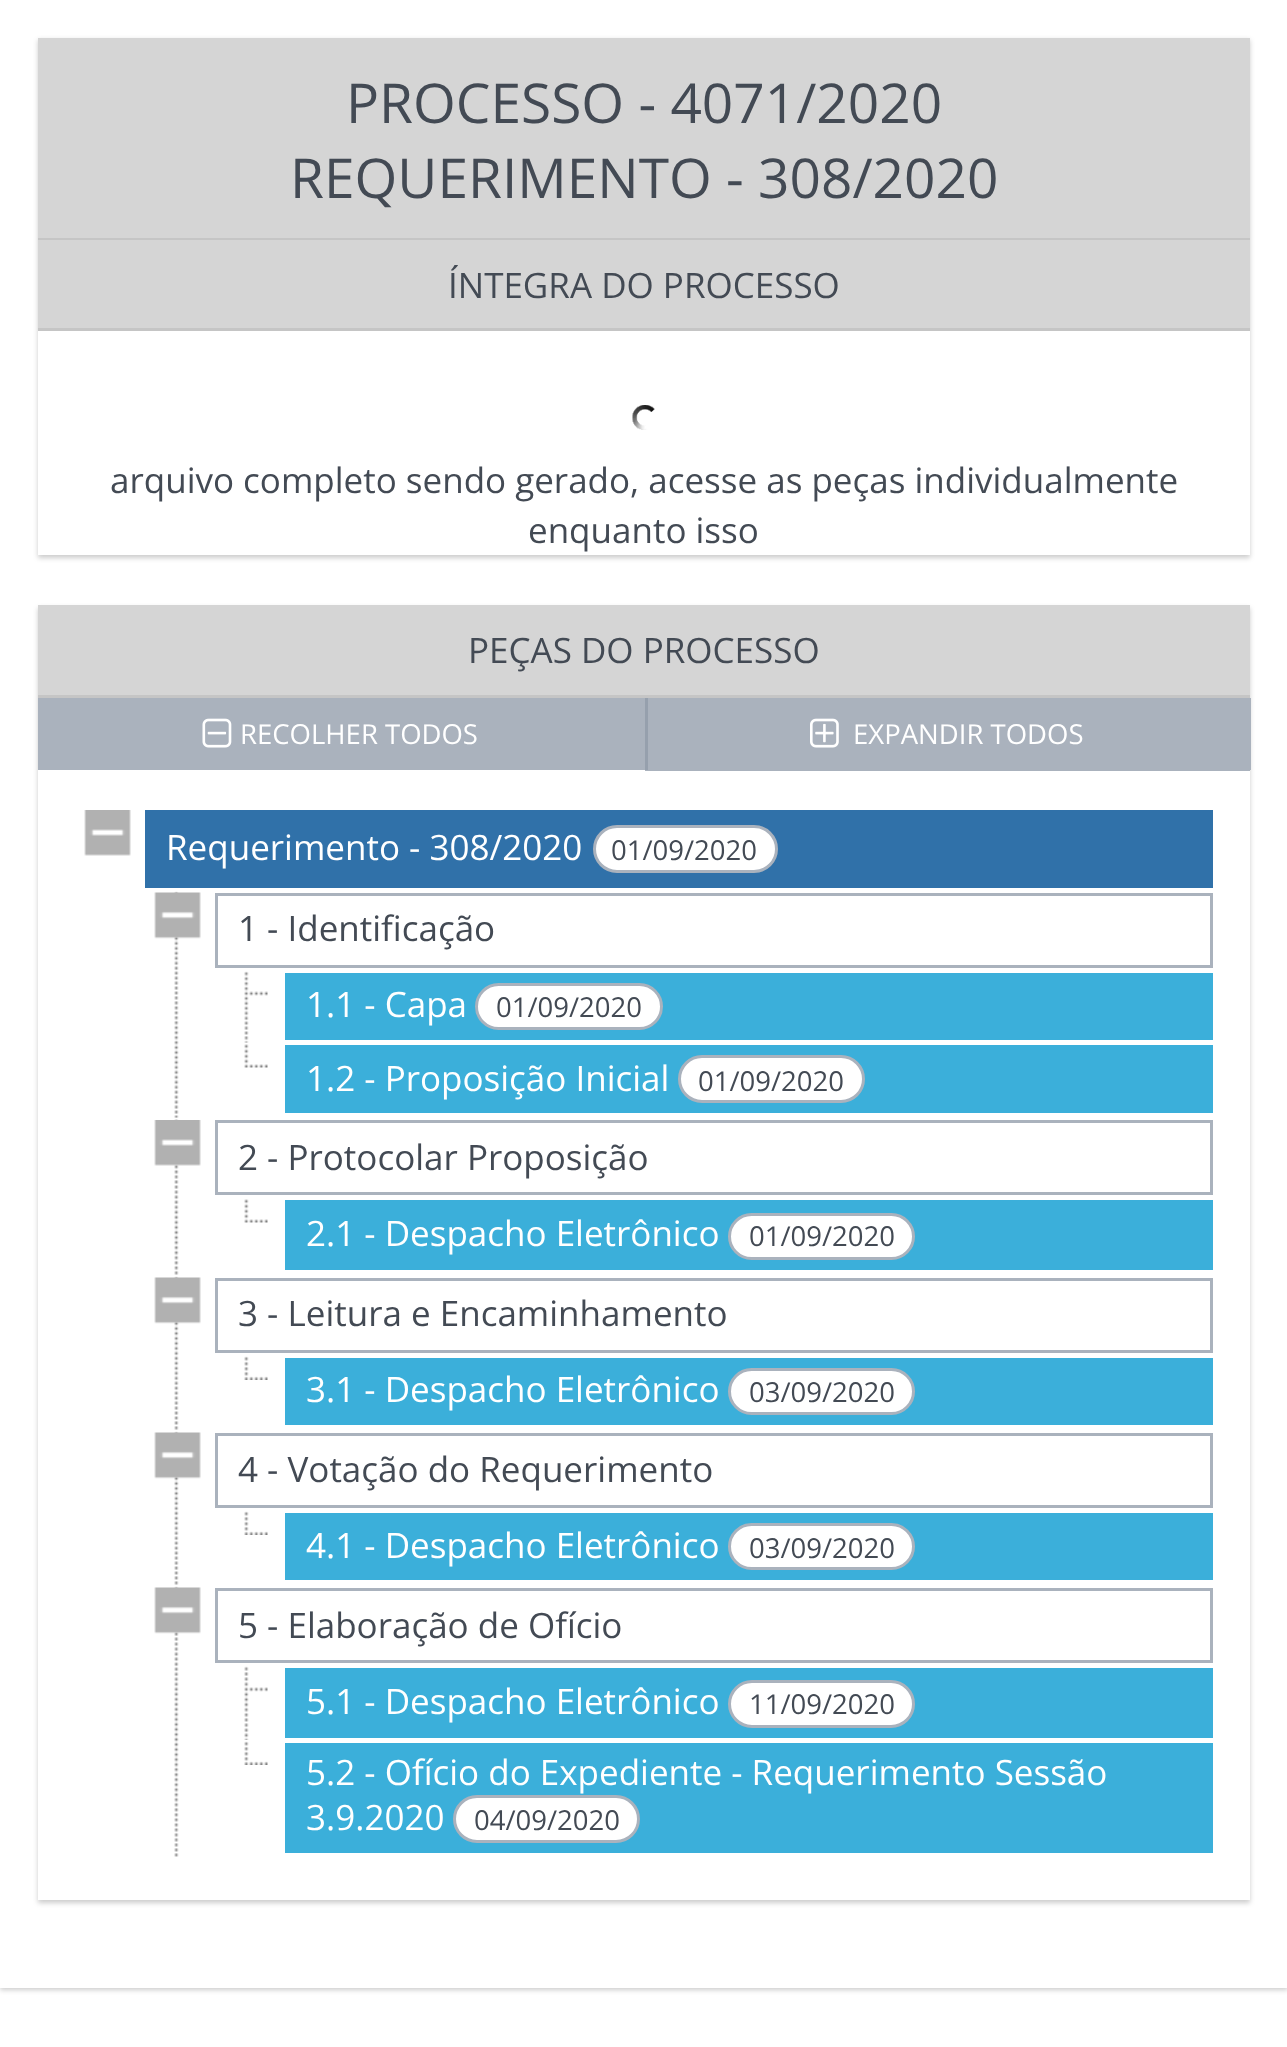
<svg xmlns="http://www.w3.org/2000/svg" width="1287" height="2047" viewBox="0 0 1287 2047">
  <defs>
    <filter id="blur1" x="-50%" y="-200%" width="200%" height="500%"><feGaussianBlur stdDeviation="2.5"/></filter>
    <clipPath id="clip1"><path d="M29 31H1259V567H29ZM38 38H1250V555H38Z" clip-rule="evenodd"/></clipPath>
    <clipPath id="clip2"><path d="M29 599H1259V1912H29ZM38 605H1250V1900H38Z" clip-rule="evenodd"/></clipPath>
  </defs>
  <rect width="100%" height="100%" fill="#ffffff"/>
  <rect x="0" y="3" width="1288" height="1987" fill="#000000" fill-opacity="0.2" filter="url(#blur1)"/>
  <rect x="0" y="0" width="1287" height="1988" fill="#ffffff"/>
  <g clip-path="url(#clip1)">
    <rect x="38" y="40" width="1212" height="518" fill="#000000" fill-opacity="0.2" filter="url(#blur1)"/>
  </g>
  <rect x="38" y="38" width="1212" height="200" fill="#d5d5d5"/>
  <rect x="38" y="238" width="1212" height="2" fill="#c5c5c5"/>
  <text x="346" y="123" font-family="Open Sans" font-size="55" fill="#434a54">PROCESSO - 4071/2020</text>
  <text x="290" y="198" font-family="Open Sans" font-size="55" fill="#434a54">REQUERIMENTO - 308/2020</text>
  <rect x="38" y="240" width="1212" height="88" fill="#d5d5d5"/>
  <rect x="38" y="328" width="1212" height="3" fill="#c5c5c5"/>
  <text x="448" y="298" font-family="Open Sans" font-size="35" fill="#434a54">ÍNTEGRA DO PROCESSO</text>
  <image x="632" y="405" width="23" height="25" href="img1.png"/>
  <text x="110" y="493" font-family="Open Sans" font-size="35" fill="#434a54">arquivo completo sendo gerado, acesse as peças individualmente</text>
  <text x="528" y="543" font-family="Open Sans" font-size="35" fill="#434a54">enquanto isso</text>
  <g clip-path="url(#clip2)">
    <rect x="38" y="608" width="1212" height="1295" fill="#000000" fill-opacity="0.2" filter="url(#blur1)"/>
  </g>
  <rect x="38" y="605" width="1212" height="90" fill="#d5d5d5"/>
  <rect x="38" y="695" width="1212" height="3" fill="#c5c5c5"/>
  <text x="468" y="663" font-family="Open Sans" font-size="35" fill="#434a54">PEÇAS DO PROCESSO</text>
  <rect x="38" y="698" width="607" height="72" fill="#aab2bd"/>
  <image x="202" y="718" width="30" height="30" href="img2.png"/>
  <text x="240" y="744" font-family="Open Sans" font-size="27.5" fill="#ffffff">RECOLHER TODOS</text>
  <rect x="648" y="698" width="600" height="70" fill="#aab2bd"/>
  <rect x="1248" y="698" width="3" height="72" fill="#aab2bd"/>
  <rect x="645" y="768" width="605" height="3" fill="#aab2bd"/>
  <rect x="645" y="698" width="3" height="72" fill="#96a0ad"/>
  <image x="810" y="718" width="29" height="30" href="img3.png"/>
  <text x="853" y="744" font-family="Open Sans" font-size="27.5" fill="#ffffff">EXPANDIR TODOS</text>
  <image x="84" y="810" width="47" height="46" href="img4.png"/>
  <rect x="145" y="810" width="1068" height="78" fill="#3071a9"/>
  <text x="166" y="860" font-family="Open Sans" font-size="35" fill="#ffffff">Requerimento - 308/2020</text>
  <rect x="594.5" y="826.5" width="182" height="45" rx="22.5" fill="#ffffff" stroke="#aab2bd" stroke-width="3"/>
  <text x="611" y="860" font-family="Open Sans" font-size="27.5" fill="#434a54">01/09/2020</text>
  <image x="174" y="891" width="5" height="227" href="img5.png"/>
  <image x="154" y="892" width="47" height="47" href="img6.png"/>
  <rect x="216.5" y="894.5" width="995" height="72" fill="none" stroke="#aab2bd" stroke-width="3"/>
  <text x="238" y="941" font-family="Open Sans" font-size="35" fill="#434a54">1 - Identificação</text>
  <image x="244" y="971" width="24" height="72" href="img7.png"/>
  <rect x="285" y="973" width="928" height="67" fill="#3bafda"/>
  <text x="306" y="1017" font-family="Open Sans" font-size="35" fill="#ffffff">1.1 - Capa</text>
  <rect x="476.5" y="984.5" width="185" height="44" rx="22" fill="#ffffff" stroke="#aab2bd" stroke-width="3"/>
  <text x="496" y="1017" font-family="Open Sans" font-size="27.5" fill="#434a54">01/09/2020</text>
  <image x="244" y="1044" width="24" height="24" href="img8.png"/>
  <rect x="285" y="1045" width="928" height="68" fill="#3bafda"/>
  <text x="306" y="1091" font-family="Open Sans" font-size="35" fill="#ffffff">1.2 - Proposição Inicial</text>
  <rect x="679.5" y="1056.5" width="184" height="45" rx="22.5" fill="#ffffff" stroke="#aab2bd" stroke-width="3"/>
  <text x="698" y="1091" font-family="Open Sans" font-size="27.5" fill="#434a54">01/09/2020</text>
  <image x="174" y="1119" width="5" height="156" href="img9.png"/>
  <image x="154" y="1120" width="47" height="46" href="img10.png"/>
  <rect x="216.5" y="1121.5" width="995" height="72" fill="none" stroke="#aab2bd" stroke-width="3"/>
  <text x="238" y="1170" font-family="Open Sans" font-size="35" fill="#434a54">2 - Protocolar Proposição</text>
  <image x="244" y="1199" width="24" height="24" href="img8.png"/>
  <rect x="285" y="1200" width="928" height="70" fill="#3bafda"/>
  <text x="306" y="1246" font-family="Open Sans" font-size="35" fill="#ffffff">2.1 - Despacho Eletrônico</text>
  <rect x="729.5" y="1214.5" width="184" height="44" rx="22" fill="#ffffff" stroke="#aab2bd" stroke-width="3"/>
  <text x="749" y="1246" font-family="Open Sans" font-size="27.5" fill="#434a54">01/09/2020</text>
  <image x="174" y="1276" width="5" height="154" href="img11.png"/>
  <image x="154" y="1277" width="47" height="47" href="img12.png"/>
  <rect x="216.5" y="1279.5" width="995" height="72" fill="none" stroke="#aab2bd" stroke-width="3"/>
  <text x="238" y="1326" font-family="Open Sans" font-size="35" fill="#434a54">3 - Leitura e Encaminhamento</text>
  <image x="244" y="1356" width="24" height="24" href="img13.png"/>
  <rect x="285" y="1358" width="928" height="67" fill="#3bafda"/>
  <text x="306" y="1402" font-family="Open Sans" font-size="35" fill="#ffffff">3.1 - Despacho Eletrônico</text>
  <rect x="729.5" y="1369.5" width="184" height="44" rx="22" fill="#ffffff" stroke="#aab2bd" stroke-width="3"/>
  <text x="749" y="1402" font-family="Open Sans" font-size="27.5" fill="#434a54">03/09/2020</text>
  <image x="174" y="1431" width="5" height="154" href="img11.png"/>
  <image x="154" y="1432" width="47" height="47" href="img12.png"/>
  <rect x="216.5" y="1434.5" width="995" height="72" fill="none" stroke="#aab2bd" stroke-width="3"/>
  <text x="238" y="1482" font-family="Open Sans" font-size="35" fill="#434a54">4 - Votação do Requerimento</text>
  <image x="244" y="1511" width="24" height="24" href="img13.png"/>
  <rect x="285" y="1513" width="928" height="67" fill="#3bafda"/>
  <text x="306" y="1558" font-family="Open Sans" font-size="35" fill="#ffffff">4.1 - Despacho Eletrônico</text>
  <rect x="729.5" y="1524.5" width="184" height="44" rx="22" fill="#ffffff" stroke="#aab2bd" stroke-width="3"/>
  <text x="749" y="1558" font-family="Open Sans" font-size="27.5" fill="#434a54">03/09/2020</text>
  <image x="174" y="1586" width="5" height="271" href="img14.png"/>
  <image x="154" y="1587" width="47" height="47" href="img15.png"/>
  <rect x="216.5" y="1589.5" width="995" height="72" fill="none" stroke="#aab2bd" stroke-width="3"/>
  <text x="238" y="1638" font-family="Open Sans" font-size="35" fill="#434a54">5 - Elaboração de Ofício</text>
  <image x="244" y="1666" width="24" height="74" href="img16.png"/>
  <rect x="285" y="1668" width="928" height="70" fill="#3bafda"/>
  <text x="306" y="1714" font-family="Open Sans" font-size="35" fill="#ffffff">5.1 - Despacho Eletrônico</text>
  <rect x="729.5" y="1681.5" width="184" height="45" rx="22.5" fill="#ffffff" stroke="#aab2bd" stroke-width="3"/>
  <text x="749" y="1714" font-family="Open Sans" font-size="27.5" fill="#434a54">11/09/2020</text>
  <image x="244" y="1741" width="24" height="24" href="img13.png"/>
  <rect x="285" y="1743" width="928" height="110" fill="#3bafda"/>
  <text x="306" y="1785" font-family="Open Sans" font-size="35" fill="#ffffff">5.2 - Ofício do Expediente - Requerimento Sessão</text>
  <text x="306" y="1830" font-family="Open Sans" font-size="35" fill="#ffffff">3.9.2020</text>
  <rect x="454.5" y="1796.5" width="184" height="45" rx="22.5" fill="#ffffff" stroke="#aab2bd" stroke-width="3"/>
  <text x="474" y="1830" font-family="Open Sans" font-size="27.5" fill="#434a54">04/09/2020</text>
</svg>
